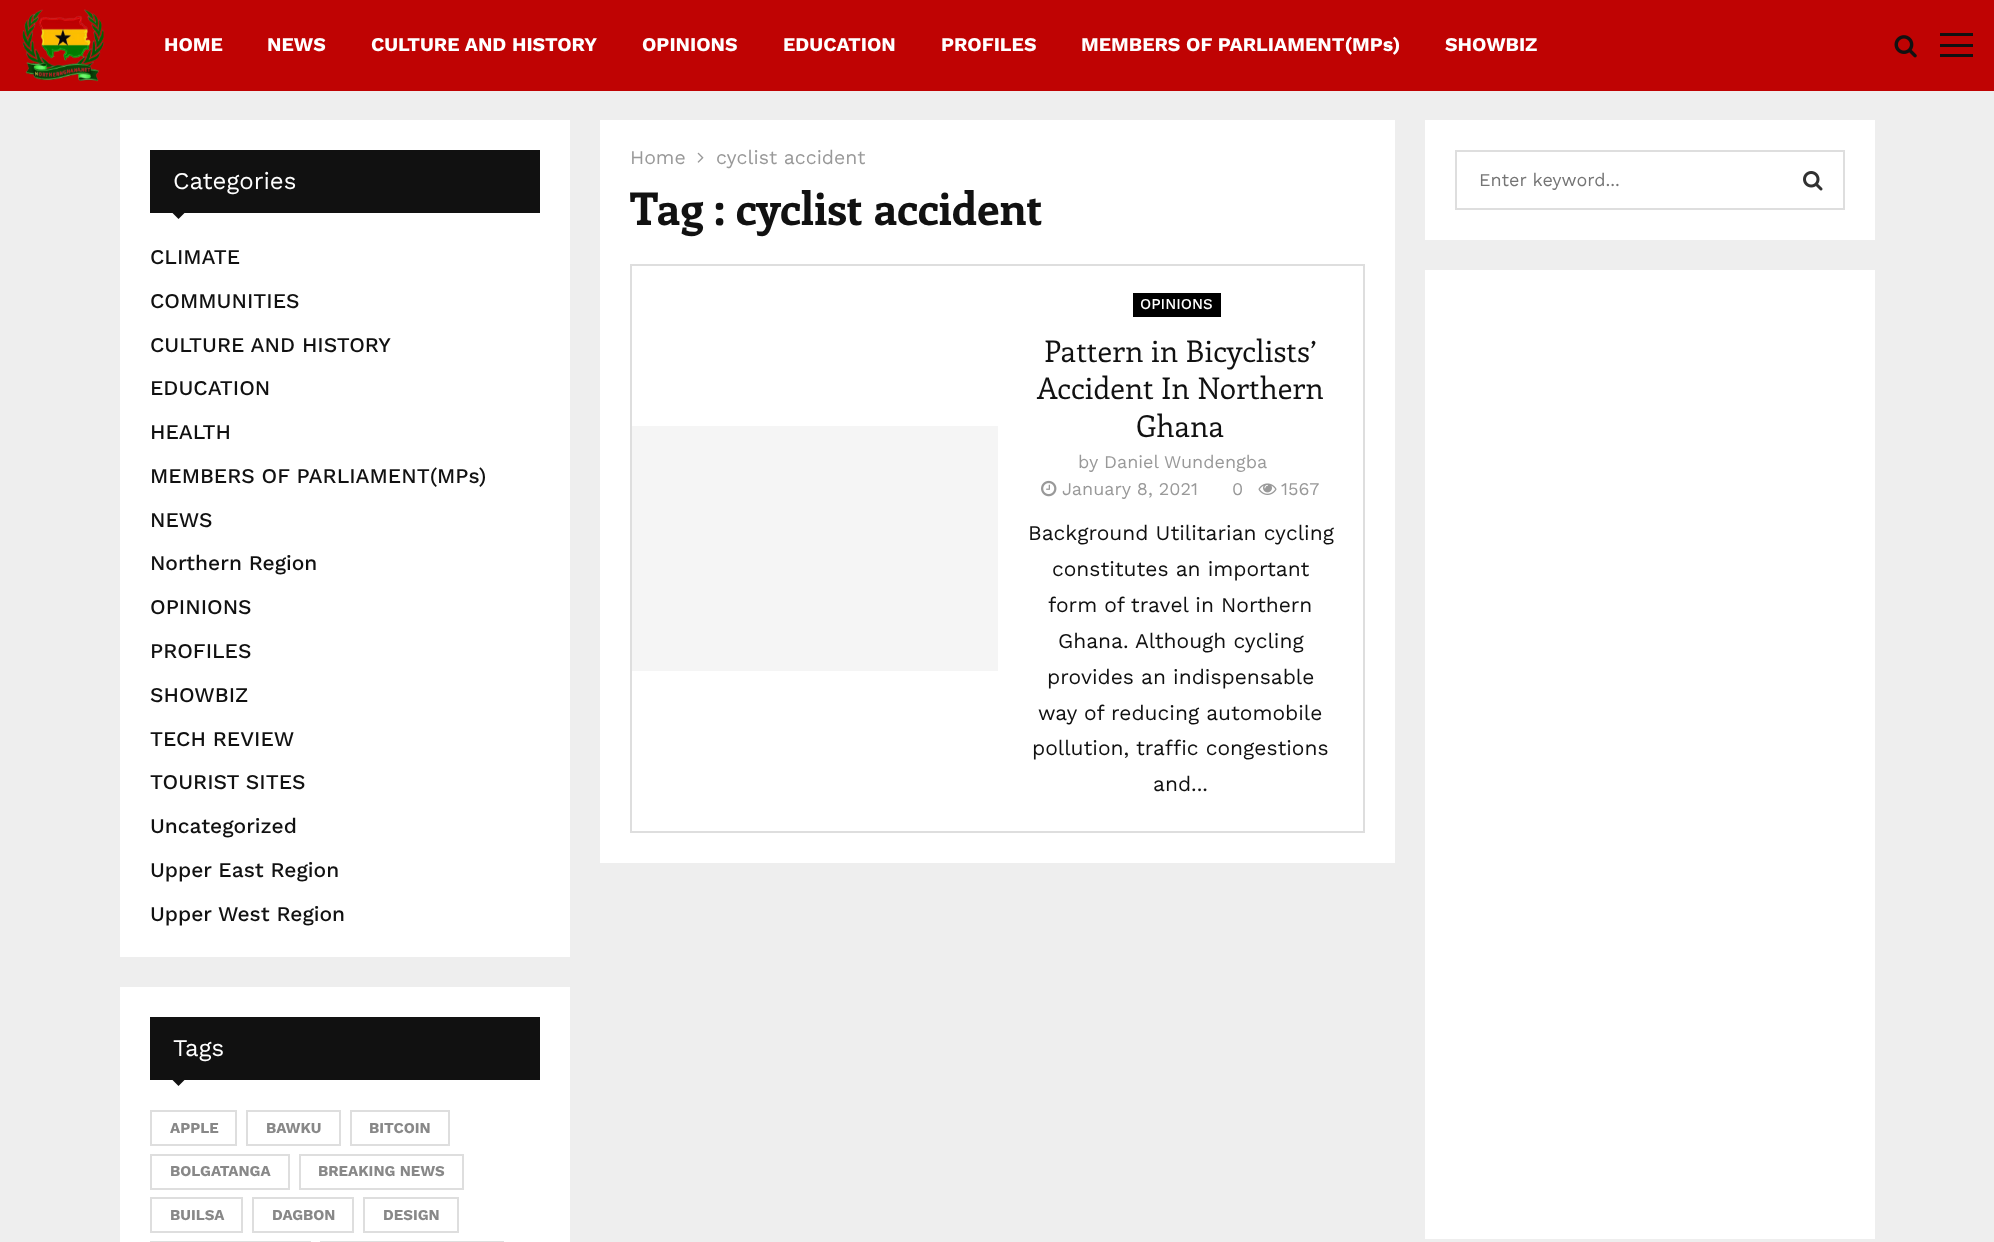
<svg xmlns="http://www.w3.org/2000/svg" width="1994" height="1242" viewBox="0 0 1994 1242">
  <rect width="100%" height="100%" fill="#eeeeee"/>
  <rect x="0" y="0" width="1994" height="91" fill="#bf0303"/>
  <image x="22" y="9" width="82" height="73" href="img1.png"/>
  <text x="164" y="51" font-family="Work Sans" font-size="19.5" font-weight="bold" fill="#ffffff">HOME</text>
  <text x="267" y="51" font-family="Work Sans" font-size="19.5" font-weight="bold" fill="#ffffff">NEWS</text>
  <text x="371" y="51" font-family="Work Sans" font-size="19.5" font-weight="bold" fill="#ffffff">CULTURE AND HISTORY</text>
  <text x="642" y="51" font-family="Work Sans" font-size="19.5" font-weight="bold" fill="#ffffff">OPINIONS</text>
  <text x="783" y="51" font-family="Work Sans" font-size="19.5" font-weight="bold" fill="#ffffff">EDUCATION</text>
  <text x="941" y="51" font-family="Work Sans" font-size="19.5" font-weight="bold" fill="#ffffff">PROFILES</text>
  <text x="1081" y="51" font-family="Work Sans" font-size="19.5" font-weight="bold" fill="#ffffff">MEMBERS OF PARLIAMENT(MPs)</text>
  <text x="1445" y="51" font-family="Work Sans" font-size="19.5" font-weight="bold" fill="#ffffff">SHOWBIZ</text>
  <image x="1894" y="35" width="23" height="23" href="img2.png"/>
  <rect x="1940" y="33" width="33" height="3" fill="#111111"/>
  <rect x="1940" y="54" width="33" height="3" fill="#111111"/>
  <rect x="1940" y="44" width="33" height="3" fill="#111111"/>
  <rect x="120" y="120" width="450" height="837" fill="#ffffff"/>
  <rect x="150" y="150" width="390" height="63" fill="#111111"/>
  <text x="173" y="189" font-family="Work Sans" font-size="24" fill="#ffffff">Categories</text>
  <path d="M172.5 213H184.5L178.5 219Z" fill="#111111"/>
  <text x="150" y="264" font-family="Work Sans" font-size="21" font-weight="500" fill="#111111">CLIMATE</text>
  <text x="150" y="308" font-family="Work Sans" font-size="21" font-weight="500" fill="#111111">COMMUNITIES</text>
  <text x="150" y="352" font-family="Work Sans" font-size="21" font-weight="500" fill="#111111">CULTURE AND HISTORY</text>
  <text x="150" y="395" font-family="Work Sans" font-size="21" font-weight="500" fill="#111111">EDUCATION</text>
  <text x="150" y="439" font-family="Work Sans" font-size="21" font-weight="500" fill="#111111">HEALTH</text>
  <text x="150" y="483" font-family="Work Sans" font-size="21" font-weight="500" fill="#111111">MEMBERS OF PARLIAMENT(MPs)</text>
  <text x="150" y="527" font-family="Work Sans" font-size="21" font-weight="500" fill="#111111">NEWS</text>
  <text x="150" y="570" font-family="Work Sans" font-size="21" font-weight="500" fill="#111111">Northern Region</text>
  <text x="150" y="614" font-family="Work Sans" font-size="21" font-weight="500" fill="#111111">OPINIONS</text>
  <text x="150" y="658" font-family="Work Sans" font-size="21" font-weight="500" fill="#111111">PROFILES</text>
  <text x="150" y="702" font-family="Work Sans" font-size="21" font-weight="500" fill="#111111">SHOWBIZ</text>
  <text x="150" y="746" font-family="Work Sans" font-size="21" font-weight="500" fill="#111111">TECH REVIEW</text>
  <text x="150" y="789" font-family="Work Sans" font-size="21" font-weight="500" fill="#111111">TOURIST SITES</text>
  <text x="150" y="833" font-family="Work Sans" font-size="21" font-weight="500" fill="#111111">Uncategorized</text>
  <text x="150" y="877" font-family="Work Sans" font-size="21" font-weight="500" fill="#111111">Upper East Region</text>
  <text x="150" y="921" font-family="Work Sans" font-size="21" font-weight="500" fill="#111111">Upper West Region</text>
  <rect x="120" y="987" width="450" height="255" fill="#ffffff"/>
  <rect x="150" y="1017" width="390" height="63" fill="#111111"/>
  <text x="173" y="1056" font-family="Work Sans" font-size="24" fill="#ffffff">Tags</text>
  <path d="M172.5 1080H184.5L178.5 1086Z" fill="#111111"/>
  <rect x="151" y="1111" width="85" height="34" fill="none" stroke="#dedede" stroke-width="2"/>
  <text x="170" y="1133" font-family="Work Sans" font-size="15" font-weight="bold" fill="#888888">APPLE</text>
  <rect x="247" y="1111" width="93" height="34" fill="none" stroke="#dedede" stroke-width="2"/>
  <text x="266" y="1133" font-family="Work Sans" font-size="15" font-weight="bold" fill="#888888">BAWKU</text>
  <rect x="351" y="1111" width="98" height="34" fill="none" stroke="#dedede" stroke-width="2"/>
  <text x="369" y="1133" font-family="Work Sans" font-size="15" font-weight="bold" fill="#888888">BITCOIN</text>
  <rect x="151" y="1155" width="138" height="34" fill="none" stroke="#dedede" stroke-width="2"/>
  <text x="170" y="1176" font-family="Work Sans" font-size="15" font-weight="bold" fill="#888888">BOLGATANGA</text>
  <rect x="300" y="1155" width="163" height="34" fill="none" stroke="#dedede" stroke-width="2"/>
  <text x="318" y="1176" font-family="Work Sans" font-size="15" font-weight="bold" fill="#888888">BREAKING NEWS</text>
  <rect x="151" y="1198" width="91" height="34" fill="none" stroke="#dedede" stroke-width="2"/>
  <text x="170" y="1220" font-family="Work Sans" font-size="15" font-weight="bold" fill="#888888">BUILSA</text>
  <rect x="253" y="1198" width="100" height="34" fill="none" stroke="#dedede" stroke-width="2"/>
  <text x="272" y="1220" font-family="Work Sans" font-size="15" font-weight="bold" fill="#888888">DAGBON</text>
  <rect x="364" y="1198" width="94" height="34" fill="none" stroke="#dedede" stroke-width="2"/>
  <text x="383" y="1220" font-family="Work Sans" font-size="15" font-weight="bold" fill="#888888">DESIGN</text>
  <rect x="151" y="1242" width="159" height="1" fill="none" stroke="#dedede" stroke-width="2"/>
  <rect x="321" y="1242" width="182" height="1" fill="none" stroke="#dedede" stroke-width="2"/>
  <rect x="600" y="120" width="795" height="743" fill="#ffffff"/>
  <text x="630" y="164" font-family="Work Sans" font-size="19.5" fill="#999999">Home</text>
  <image x="697" y="152" width="7" height="11" href="img3.png"/>
  <text x="716" y="164" font-family="Work Sans" font-size="19.5" fill="#999999">cyclist accident</text>
  <text x="630" y="225" font-family="Enriqueta" font-size="45" font-weight="bold" fill="#111111">Tag : cyclist accident</text>
  <rect x="631" y="265" width="733" height="567" fill="none" stroke="#dedede" stroke-width="2"/>
  <rect x="632" y="426" width="366" height="245" fill="#f5f5f5"/>
  <rect x="1133" y="293" width="88" height="24" fill="#000000"/>
  <text x="1140" y="309" font-family="Work Sans" font-size="15" font-weight="500" fill="#ffffff">OPINIONS</text>
  <text x="1044" y="362" font-family="Enriqueta" font-size="30" fill="#111111">Pattern in Bicyclists’</text>
  <text x="1037" y="399" font-family="Enriqueta" font-size="30" fill="#111111">Accident In Northern</text>
  <text x="1136" y="437" font-family="Enriqueta" font-size="30" fill="#111111">Ghana</text>
  <text x="1078" y="468" font-family="Work Sans" font-size="18" fill="#999999">by Daniel Wundengba</text>
  <image x="1041" y="480" width="16" height="17" href="img4.png"/>
  <text x="1062" y="495" font-family="Work Sans" font-size="18" fill="#999999">January 8, 2021</text>
  <text x="1232" y="495" font-family="Work Sans" font-size="18" fill="#999999">0</text>
  <image x="1258" y="483" width="19" height="12" href="img5.png"/>
  <text x="1281" y="495" font-family="Work Sans" font-size="18" fill="#999999">1567</text>
  <text x="1028" y="540" font-family="Work Sans" font-size="21" fill="#111111">Background Utilitarian cycling</text>
  <text x="1052" y="576" font-family="Work Sans" font-size="21" fill="#111111">constitutes an important</text>
  <text x="1048" y="612" font-family="Work Sans" font-size="21" fill="#111111">form of travel in Northern</text>
  <text x="1058" y="648" font-family="Work Sans" font-size="21" fill="#111111">Ghana. Although cycling</text>
  <text x="1047" y="684" font-family="Work Sans" font-size="21" fill="#111111">provides an indispensable</text>
  <text x="1038" y="720" font-family="Work Sans" font-size="21" fill="#111111">way of reducing automobile</text>
  <text x="1032" y="755" font-family="Work Sans" font-size="21" fill="#111111">pollution, traffic congestions</text>
  <text x="1153" y="791" font-family="Work Sans" font-size="21" fill="#111111">and...</text>
  <rect x="1425" y="120" width="450" height="120" fill="#ffffff"/>
  <rect x="1456" y="151" width="388" height="58" fill="none" stroke="#dedede" stroke-width="2"/>
  <text x="1479" y="186" font-family="Work Sans" font-size="18" fill="#757575">Enter keyword...</text>
  <image x="1803" y="171" width="20" height="20" href="img6.png"/>
  <rect x="1425" y="270" width="450" height="969" fill="#ffffff"/>
</svg>
